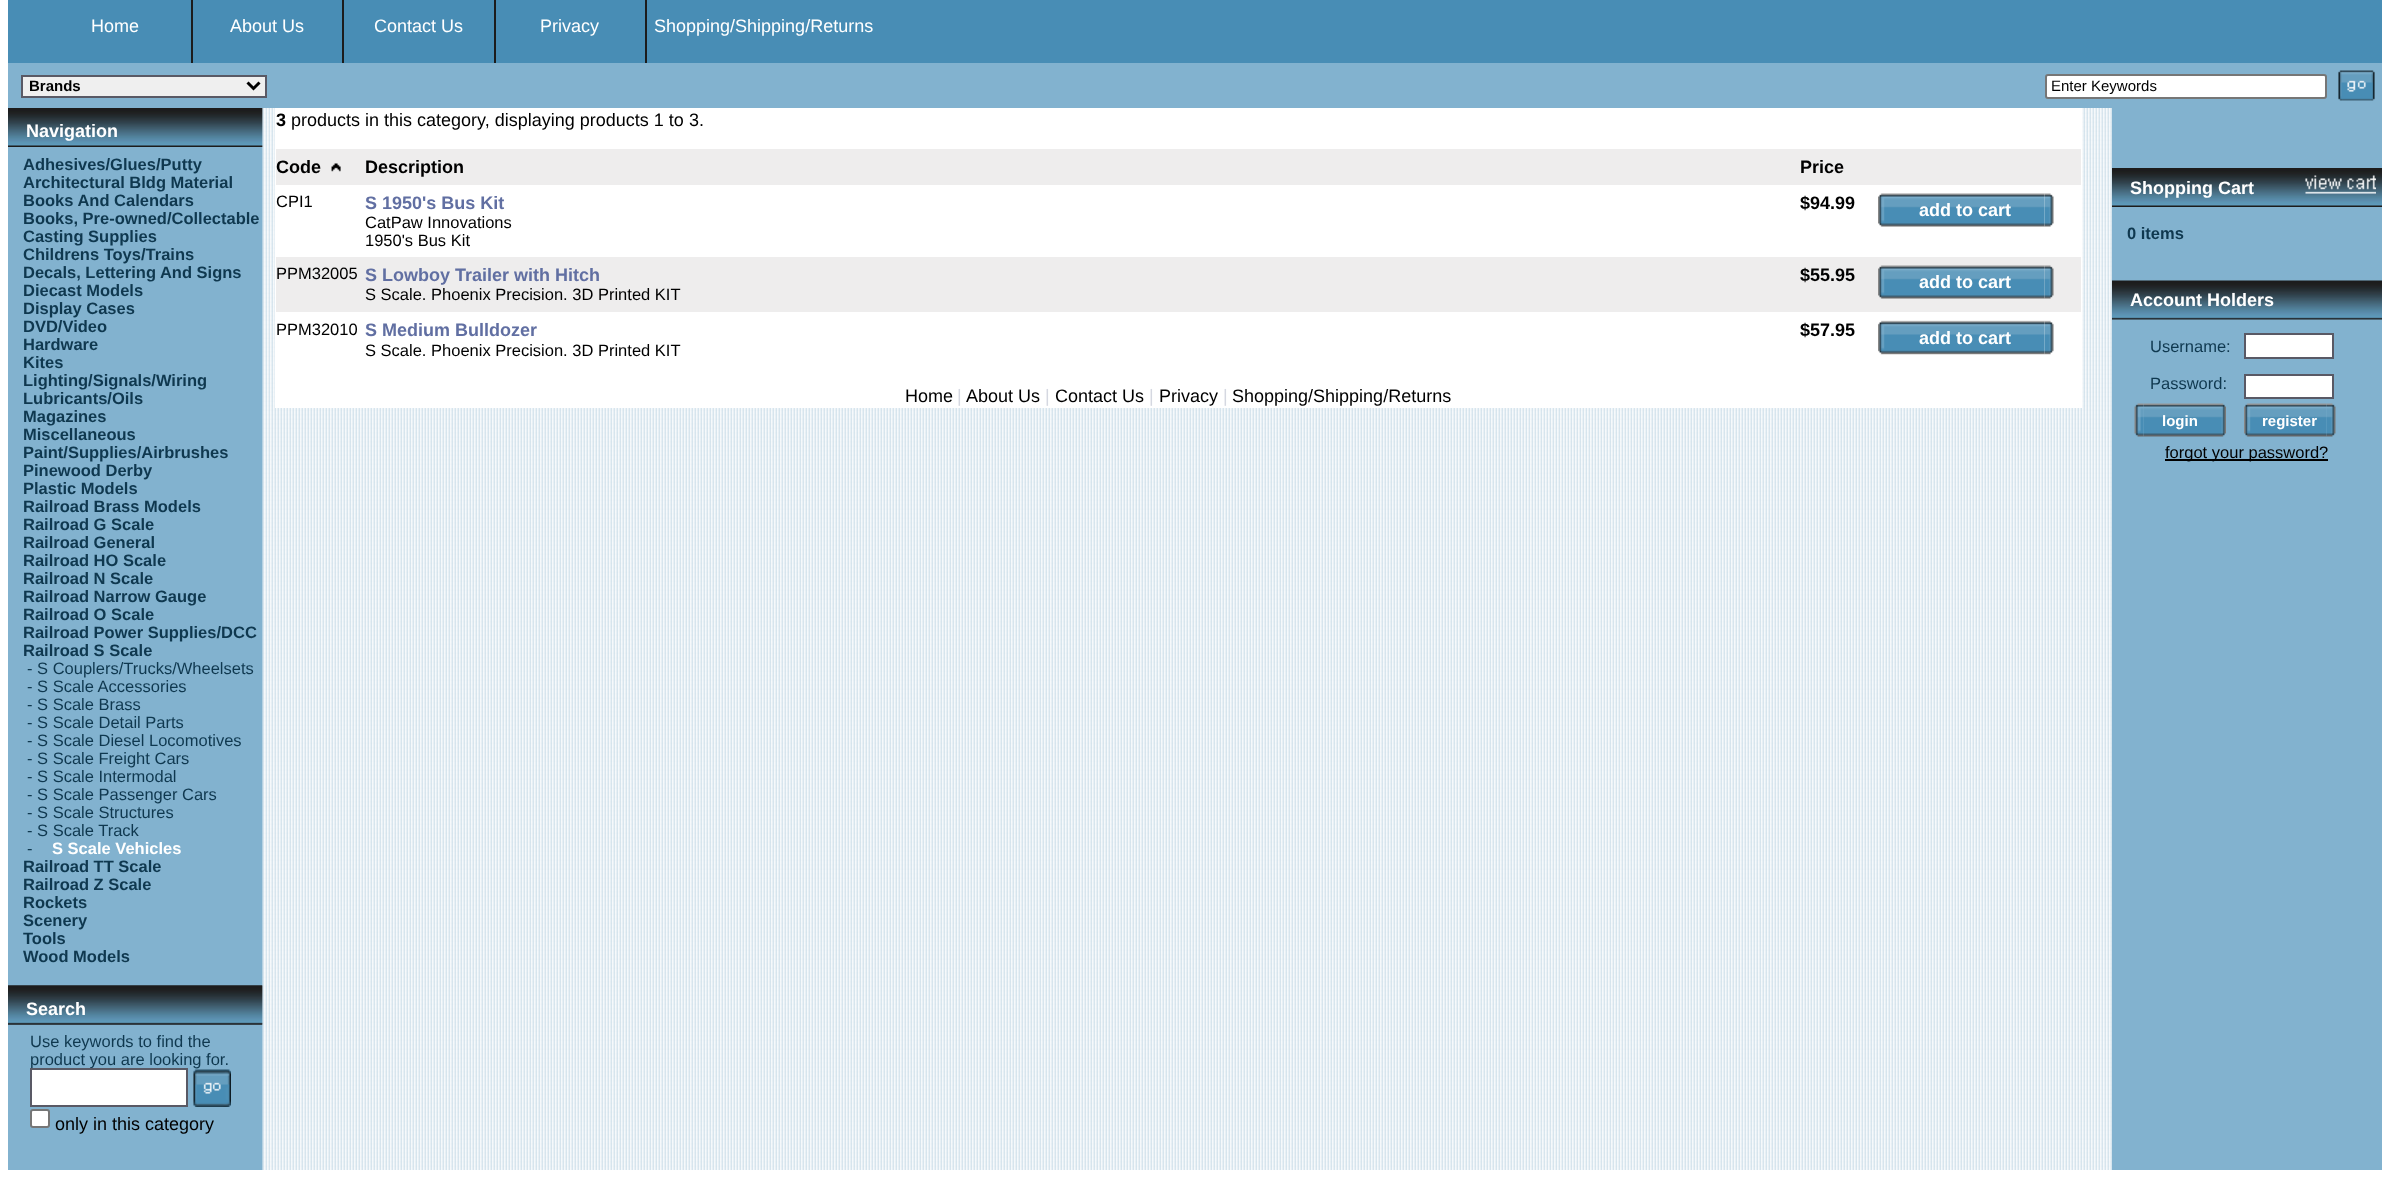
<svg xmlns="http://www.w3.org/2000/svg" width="2389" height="1177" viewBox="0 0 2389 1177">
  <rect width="100%" height="100%" fill="#488db5"/>
  <rect x="2382" y="0" width="7" height="1177" fill="#ffffff"/>
  <rect x="0" y="0" width="8" height="108" fill="#ffffff"/>
  <text x="91" y="32" font-family="Liberation Sans" font-size="18" fill="#ffffff">Home</text>
  <rect x="191" y="0" width="2" height="63" fill="#1c1c1c"/>
  <text x="230" y="32" font-family="Liberation Sans" font-size="18" fill="#ffffff">About Us</text>
  <rect x="342" y="0" width="2" height="63" fill="#1c1c1c"/>
  <text x="374" y="32" font-family="Liberation Sans" font-size="18" fill="#ffffff">Contact Us</text>
  <rect x="494" y="0" width="2" height="63" fill="#1c1c1c"/>
  <text x="540" y="32" font-family="Liberation Sans" font-size="18" fill="#ffffff">Privacy</text>
  <rect x="645" y="0" width="2" height="63" fill="#1c1c1c"/>
  <text x="654" y="32" font-family="Liberation Sans" font-size="18" fill="#ffffff">Shopping/Shipping/Returns</text>
  <rect x="8" y="63" width="2374" height="45" fill="#82b2cf"/>
  <rect x="22" y="76" width="244" height="21" fill="#efefef" stroke="#595965" stroke-width="2"/>
  <path d="M247.5 82.5L253.5 88.5L259.5 82.5" fill="none" stroke="#000000" stroke-width="3"/>
  <text x="29" y="91" font-family="Liberation Sans" font-size="15" font-weight="bold" fill="#000000">Brands</text>
  <rect x="2046" y="75" width="280" height="23" rx="2" fill="#ffffff" stroke="#767676" stroke-width="2"/>
  <text x="2051" y="91" font-family="Liberation Sans" font-size="15" fill="#000000">Enter Keywords</text>
  <image x="2338" y="70" width="37" height="31" href="img1.png"/>
  <rect x="8" y="108" width="255" height="1062" fill="#82b2cf"/>
  <rect x="0" y="1170" width="2389" height="7" fill="#ffffff"/>
  <rect x="0" y="105" width="8" height="1072" fill="#ffffff"/>
  <image x="262" y="108" width="1" height="39" href="img2.png"/>
  <image x="8" y="108" width="255" height="39" href="img3.png"/>
  <text x="26" y="137" font-family="Liberation Sans" font-size="18" font-weight="bold" fill="#ffffff">Navigation</text>
  <text x="23" y="170" font-family="Liberation Sans" font-size="16.5" font-weight="bold" fill="#0f384f">Adhesives/Glues/Putty</text>
  <text x="23" y="188" font-family="Liberation Sans" font-size="16.5" font-weight="bold" fill="#0f384f">Architectural Bldg Material</text>
  <text x="23" y="206" font-family="Liberation Sans" font-size="16.5" font-weight="bold" fill="#0f384f">Books And Calendars</text>
  <text x="23" y="224" font-family="Liberation Sans" font-size="16.5" font-weight="bold" fill="#0f384f">Books, Pre-owned/Collectable</text>
  <text x="23" y="242" font-family="Liberation Sans" font-size="16.5" font-weight="bold" fill="#0f384f">Casting Supplies</text>
  <text x="23" y="260" font-family="Liberation Sans" font-size="16.5" font-weight="bold" fill="#0f384f">Childrens Toys/Trains</text>
  <text x="23" y="278" font-family="Liberation Sans" font-size="16.5" font-weight="bold" fill="#0f384f">Decals, Lettering And Signs</text>
  <text x="23" y="296" font-family="Liberation Sans" font-size="16.5" font-weight="bold" fill="#0f384f">Diecast Models</text>
  <text x="23" y="314" font-family="Liberation Sans" font-size="16.5" font-weight="bold" fill="#0f384f">Display Cases</text>
  <text x="23" y="332" font-family="Liberation Sans" font-size="16.5" font-weight="bold" fill="#0f384f">DVD/Video</text>
  <text x="23" y="350" font-family="Liberation Sans" font-size="16.5" font-weight="bold" fill="#0f384f">Hardware</text>
  <text x="23" y="368" font-family="Liberation Sans" font-size="16.5" font-weight="bold" fill="#0f384f">Kites</text>
  <text x="23" y="386" font-family="Liberation Sans" font-size="16.5" font-weight="bold" fill="#0f384f">Lighting/Signals/Wiring</text>
  <text x="23" y="404" font-family="Liberation Sans" font-size="16.5" font-weight="bold" fill="#0f384f">Lubricants/Oils</text>
  <text x="23" y="422" font-family="Liberation Sans" font-size="16.5" font-weight="bold" fill="#0f384f">Magazines</text>
  <text x="23" y="440" font-family="Liberation Sans" font-size="16.5" font-weight="bold" fill="#0f384f">Miscellaneous</text>
  <text x="23" y="458" font-family="Liberation Sans" font-size="16.5" font-weight="bold" fill="#0f384f">Paint/Supplies/Airbrushes</text>
  <text x="23" y="476" font-family="Liberation Sans" font-size="16.5" font-weight="bold" fill="#0f384f">Pinewood Derby</text>
  <text x="23" y="494" font-family="Liberation Sans" font-size="16.5" font-weight="bold" fill="#0f384f">Plastic Models</text>
  <text x="23" y="512" font-family="Liberation Sans" font-size="16.5" font-weight="bold" fill="#0f384f">Railroad Brass Models</text>
  <text x="23" y="530" font-family="Liberation Sans" font-size="16.5" font-weight="bold" fill="#0f384f">Railroad G Scale</text>
  <text x="23" y="548" font-family="Liberation Sans" font-size="16.5" font-weight="bold" fill="#0f384f">Railroad General</text>
  <text x="23" y="566" font-family="Liberation Sans" font-size="16.5" font-weight="bold" fill="#0f384f">Railroad HO Scale</text>
  <text x="23" y="584" font-family="Liberation Sans" font-size="16.5" font-weight="bold" fill="#0f384f">Railroad N Scale</text>
  <text x="23" y="602" font-family="Liberation Sans" font-size="16.5" font-weight="bold" fill="#0f384f">Railroad Narrow Gauge</text>
  <text x="23" y="620" font-family="Liberation Sans" font-size="16.5" font-weight="bold" fill="#0f384f">Railroad O Scale</text>
  <text x="23" y="638" font-family="Liberation Sans" font-size="16.5" font-weight="bold" fill="#0f384f">Railroad Power Supplies/DCC</text>
  <text x="23" y="656" font-family="Liberation Sans" font-size="16.5" font-weight="bold" fill="#0f384f">Railroad S Scale</text>
  <text x="27" y="674" font-family="Liberation Sans" font-size="16.5" fill="#0f384f">- S Couplers/Trucks/Wheelsets</text>
  <text x="27" y="692" font-family="Liberation Sans" font-size="16.5" fill="#0f384f">- S Scale Accessories</text>
  <text x="27" y="710" font-family="Liberation Sans" font-size="16.5" fill="#0f384f">- S Scale Brass</text>
  <text x="27" y="728" font-family="Liberation Sans" font-size="16.5" fill="#0f384f">- S Scale Detail Parts</text>
  <text x="27" y="746" font-family="Liberation Sans" font-size="16.5" fill="#0f384f">- S Scale Diesel Locomotives</text>
  <text x="27" y="764" font-family="Liberation Sans" font-size="16.5" fill="#0f384f">- S Scale Freight Cars</text>
  <text x="27" y="782" font-family="Liberation Sans" font-size="16.5" fill="#0f384f">- S Scale Intermodal</text>
  <text x="27" y="800" font-family="Liberation Sans" font-size="16.5" fill="#0f384f">- S Scale Passenger Cars</text>
  <text x="27" y="818" font-family="Liberation Sans" font-size="16.5" fill="#0f384f">- S Scale Structures</text>
  <text x="27" y="836" font-family="Liberation Sans" font-size="16.5" fill="#0f384f">- S Scale Track</text>
  <text x="27" y="854" font-family="Liberation Sans" font-size="16.5" fill="#0f384f">-</text>
  <text x="52" y="854" font-family="Liberation Sans" font-size="16.5" font-weight="bold" fill="#ffffff">S Scale Vehicles</text>
  <text x="23" y="872" font-family="Liberation Sans" font-size="16.5" font-weight="bold" fill="#0f384f">Railroad TT Scale</text>
  <text x="23" y="890" font-family="Liberation Sans" font-size="16.5" font-weight="bold" fill="#0f384f">Railroad Z Scale</text>
  <text x="23" y="908" font-family="Liberation Sans" font-size="16.5" font-weight="bold" fill="#0f384f">Rockets</text>
  <text x="23" y="926" font-family="Liberation Sans" font-size="16.5" font-weight="bold" fill="#0f384f">Scenery</text>
  <text x="23" y="944" font-family="Liberation Sans" font-size="16.5" font-weight="bold" fill="#0f384f">Tools</text>
  <text x="23" y="962" font-family="Liberation Sans" font-size="16.5" font-weight="bold" fill="#0f384f">Wood Models</text>
  <image x="8" y="985" width="255" height="40" href="img4.png"/>
  <image x="8" y="985" width="255" height="40" href="img5.png"/>
  <text x="26" y="1015" font-family="Liberation Sans" font-size="18" font-weight="bold" fill="#ffffff">Search</text>
  <text x="30" y="1047" font-family="Liberation Sans" font-size="16.5" fill="#0f384f">Use keywords to find the</text>
  <text x="30" y="1065" font-family="Liberation Sans" font-size="16.5" fill="#0f384f">product you are looking for.</text>
  <rect x="31" y="1069" width="156" height="37" fill="#ffffff" stroke="#595965" stroke-width="2"/>
  <image x="193" y="1069" width="38" height="38" href="img6.png"/>
  <rect x="31" y="1110" width="18" height="17" rx="2" fill="#ffffff" stroke="#767676" stroke-width="2"/>
  <text x="55" y="1130" font-family="Liberation Sans" font-size="18" fill="#000000">only in this category</text>
  <image x="262" y="108" width="1850" height="1062" href="img7.png"/>
  <rect x="275" y="108" width="1807" height="300" fill="#ffffff"/>
  <text x="276" y="126" font-family="Liberation Sans" font-size="18" font-weight="bold" fill="#000000">3</text>
  <text x="291" y="126" font-family="Liberation Sans" font-size="18" fill="#000000">products in this category, displaying products 1 to 3.</text>
  <rect x="276" y="149" width="1805" height="36" fill="#eeeded"/>
  <text x="276" y="173" font-family="Liberation Sans" font-size="18" font-weight="bold" fill="#000000">Code</text>
  <image x="331" y="163" width="10" height="9" href="img8.png"/>
  <text x="365" y="173" font-family="Liberation Sans" font-size="18" font-weight="bold" fill="#000000">Description</text>
  <text x="1800" y="173" font-family="Liberation Sans" font-size="18" font-weight="bold" fill="#000000">Price</text>
  <text x="276" y="207" font-family="Liberation Sans" font-size="16.5" fill="#000000">CPI1</text>
  <text x="365" y="209" font-family="Liberation Sans" font-size="18" font-weight="bold" fill="#616fa2">S 1950's Bus Kit</text>
  <text x="365" y="228" font-family="Liberation Sans" font-size="16.5" fill="#000000">CatPaw Innovations</text>
  <text x="365" y="246" font-family="Liberation Sans" font-size="16.5" fill="#000000">1950's Bus Kit</text>
  <text x="1800" y="209" font-family="Liberation Sans" font-size="18" font-weight="bold" fill="#000000">$94.99</text>
  <image x="1878" y="193" width="9" height="34" href="img9.png"/>
  <image x="1887" y="193" width="158" height="34" href="img10.png"/>
  <text x="1919" y="216" font-family="Liberation Sans" font-size="18" font-weight="bold" fill="#ffffff">add to cart</text>
  <image x="2044" y="193" width="10" height="34" href="img11.png"/>
  <rect x="276" y="257" width="1805" height="55" fill="#eeeded"/>
  <text x="276" y="279" font-family="Liberation Sans" font-size="16.5" fill="#000000">PPM32005</text>
  <text x="365" y="281" font-family="Liberation Sans" font-size="18" font-weight="bold" fill="#616fa2">S Lowboy Trailer with Hitch</text>
  <text x="365" y="300" font-family="Liberation Sans" font-size="16.5" fill="#000000">S Scale. Phoenix Precision. 3D Printed KIT</text>
  <text x="1800" y="281" font-family="Liberation Sans" font-size="18" font-weight="bold" fill="#000000">$55.95</text>
  <image x="1878" y="265" width="9" height="34" href="img12.png"/>
  <image x="1887" y="265" width="158" height="34" href="img13.png"/>
  <text x="1919" y="288" font-family="Liberation Sans" font-size="18" font-weight="bold" fill="#ffffff">add to cart</text>
  <image x="2044" y="265" width="10" height="34" href="img14.png"/>
  <text x="276" y="335" font-family="Liberation Sans" font-size="16.5" fill="#000000">PPM32010</text>
  <text x="365" y="336" font-family="Liberation Sans" font-size="18" font-weight="bold" fill="#616fa2">S Medium Bulldozer</text>
  <text x="365" y="356" font-family="Liberation Sans" font-size="16.5" fill="#000000">S Scale. Phoenix Precision. 3D Printed KIT</text>
  <text x="1800" y="336" font-family="Liberation Sans" font-size="18" font-weight="bold" fill="#000000">$57.95</text>
  <image x="1878" y="320" width="9" height="35" href="img15.png"/>
  <image x="1887" y="320" width="158" height="35" href="img16.png"/>
  <text x="1919" y="344" font-family="Liberation Sans" font-size="18" font-weight="bold" fill="#ffffff">add to cart</text>
  <image x="2044" y="320" width="10" height="35" href="img17.png"/>
  <text x="905" y="402" font-family="Liberation Sans" font-size="18" fill="#000000">Home</text>
  <text x="957" y="402" font-family="Liberation Sans" font-size="18" fill="#d5d8e1">|</text>
  <text x="966" y="402" font-family="Liberation Sans" font-size="18" fill="#000000">About Us</text>
  <text x="1045" y="402" font-family="Liberation Sans" font-size="18" fill="#d5d8e1">|</text>
  <text x="1055" y="402" font-family="Liberation Sans" font-size="18" fill="#000000">Contact Us</text>
  <text x="1149" y="402" font-family="Liberation Sans" font-size="18" fill="#d5d8e1">|</text>
  <text x="1159" y="402" font-family="Liberation Sans" font-size="18" fill="#000000">Privacy</text>
  <text x="1223" y="402" font-family="Liberation Sans" font-size="18" fill="#d5d8e1">|</text>
  <text x="1232" y="402" font-family="Liberation Sans" font-size="18" fill="#000000">Shopping/Shipping/Returns</text>
  <rect x="2112" y="108" width="270" height="1062" fill="#82b2cf"/>
  <image x="2112" y="168" width="270" height="39" href="img18.png"/>
  <text x="2130" y="194" font-family="Liberation Sans" font-size="18" font-weight="bold" fill="#ffffff">Shopping Cart</text>
  <image x="2305" y="175" width="71" height="19" href="img19.png"/>
  <text x="2127" y="239" font-family="Liberation Sans" font-size="16.5" font-weight="bold" fill="#0f384f">0 items</text>
  <image x="2112" y="280" width="270" height="40" href="img20.png"/>
  <text x="2130" y="306" font-family="Liberation Sans" font-size="18" font-weight="bold" fill="#ffffff">Account Holders</text>
  <text x="2150" y="352" font-family="Liberation Sans" font-size="16.5" fill="#0f384f">Username:</text>
  <rect x="2245" y="334" width="88" height="24" fill="#ffffff" stroke="#595965" stroke-width="2"/>
  <text x="2150" y="389" font-family="Liberation Sans" font-size="16.5" fill="#0f384f">Password:</text>
  <rect x="2245" y="375" width="88" height="23" fill="#ffffff" stroke="#595965" stroke-width="2"/>
  <image x="2134" y="403" width="10" height="34" href="img21.png"/>
  <image x="2143" y="403" width="74" height="34" href="img22.png"/>
  <text x="2162" y="426" font-family="Liberation Sans" font-size="15" font-weight="bold" fill="#ffffff">login</text>
  <image x="2217" y="403" width="9" height="34" href="img23.png"/>
  <image x="2244" y="403" width="9" height="34" href="img24.png"/>
  <image x="2253" y="403" width="74" height="34" href="img25.png"/>
  <text x="2262" y="426" font-family="Liberation Sans" font-size="15" font-weight="bold" fill="#ffffff">register</text>
  <image x="2326" y="403" width="10" height="34" href="img26.png"/>
  <rect x="2165" y="459" width="163" height="2" fill="#000000"/>
  <text x="2165" y="458" font-family="Liberation Sans" font-size="16.5" fill="#000000">forgot your password?</text>
</svg>
